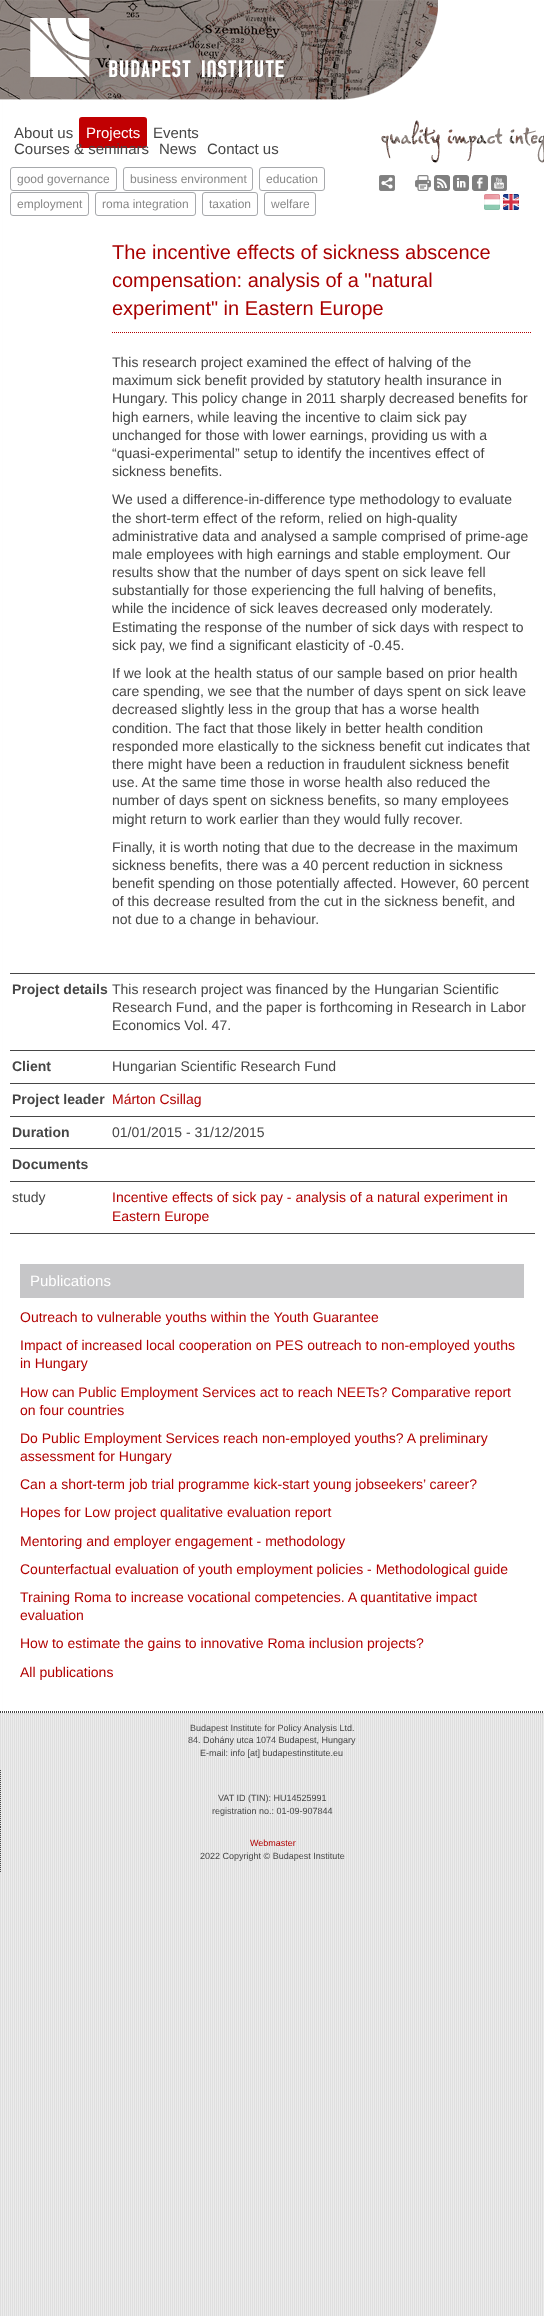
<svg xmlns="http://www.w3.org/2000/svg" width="544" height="2316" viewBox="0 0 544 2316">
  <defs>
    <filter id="blur1" x="-50%" y="-200%" width="200%" height="500%"><feGaussianBlur stdDeviation="2.5"/></filter>
  </defs>
  <rect width="100%" height="100%" fill="#ffffff"/>
  <image x="0" y="1713" width="544" height="603" href="img1.png"/>
  <rect x="7" y="2" width="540" height="1709" fill="#000000" fill-opacity="0.15" filter="url(#blur1)"/>
  <rect x="3" y="0" width="541" height="1713" fill="#ffffff"/>
  <image x="0" y="0" width="438" height="100" href="img2.png"/>
  <image x="30" y="18" width="254" height="60" href="img3.png"/>
  <text x="14" y="138" font-family="Liberation Sans" font-size="15" fill="#464646">About us</text>
  <rect x="79" y="117" width="68" height="31" rx="3" fill="#c10002"/>
  <text x="86" y="138" font-family="Liberation Sans" font-size="15" fill="#ffffff">Projects</text>
  <text x="153" y="138" font-family="Liberation Sans" font-size="15" fill="#464646">Events</text>
  <text x="14" y="154" font-family="Liberation Sans" font-size="15" fill="#464646">Courses &amp; seminars</text>
  <text x="159" y="154" font-family="Liberation Sans" font-size="15" fill="#464646">News</text>
  <text x="207" y="154" font-family="Liberation Sans" font-size="15" fill="#464646">Contact us</text>
  <image x="381" y="120" width="163" height="43" href="img4.png"/>
  <image x="379" y="175" width="16" height="16" href="img5.png"/>
  <image x="415" y="175" width="16" height="16" href="img6.png"/>
  <image x="434" y="175" width="16" height="16" href="img7.png"/>
  <image x="453" y="175" width="16" height="16" href="img8.png"/>
  <image x="472" y="175" width="16" height="16" href="img9.png"/>
  <image x="491" y="175" width="16" height="16" href="img10.png"/>
  <image x="484" y="194" width="16" height="16" href="img11.png"/>
  <image x="503" y="194" width="16" height="16" href="img12.png"/>
  <rect x="10.5" y="167.5" width="106" height="23" rx="2.5" fill="none" stroke="#a7a9ac"/>
  <text x="17" y="183" font-family="Liberation Sans" font-size="12" fill="#898989">good governance</text>
  <rect x="123.5" y="167.5" width="129" height="23" rx="2.5" fill="none" stroke="#a7a9ac"/>
  <text x="130" y="183" font-family="Liberation Sans" font-size="12" fill="#898989">business environment</text>
  <rect x="259.5" y="167.5" width="65" height="23" rx="2.5" fill="none" stroke="#a7a9ac"/>
  <text x="266" y="183" font-family="Liberation Sans" font-size="12" fill="#898989">education</text>
  <rect x="10.5" y="192.5" width="78" height="23" rx="2.5" fill="none" stroke="#a7a9ac"/>
  <text x="17" y="208" font-family="Liberation Sans" font-size="12" fill="#898989">employment</text>
  <rect x="95.5" y="192.5" width="100" height="23" rx="2.5" fill="none" stroke="#a7a9ac"/>
  <text x="102" y="208" font-family="Liberation Sans" font-size="12" fill="#898989">roma integration</text>
  <rect x="202.5" y="192.5" width="55" height="23" rx="2.5" fill="none" stroke="#a7a9ac"/>
  <text x="209" y="208" font-family="Liberation Sans" font-size="12" fill="#898989">taxation</text>
  <rect x="264.5" y="192.5" width="51" height="23" rx="2.5" fill="none" stroke="#a7a9ac"/>
  <text x="271" y="208" font-family="Liberation Sans" font-size="12" fill="#898989">welfare</text>
  <rect x="10" y="973" width="525" height="1" fill="#464646"/>
  <path d="M112 332.5H532" fill="none" stroke="#b10000" stroke-dasharray="1 1"/>
  <text x="112" y="259" font-family="Liberation Sans" font-size="20" fill="#a90000">The incentive effects of sickness abscence</text>
  <text x="112" y="287" font-family="Liberation Sans" font-size="20" fill="#a90000">compensation: analysis of a "natural</text>
  <text x="112" y="315" font-family="Liberation Sans" font-size="20" fill="#a90000">experiment" in Eastern Europe</text>
  <text x="112" y="367" font-family="Liberation Sans" font-size="14" fill="#464646">This research project examined the effect of halving of the</text>
  <text x="112" y="385" font-family="Liberation Sans" font-size="14" fill="#464646">maximum sick benefit provided by statutory health insurance in</text>
  <text x="112" y="403" font-family="Liberation Sans" font-size="14" fill="#464646">Hungary. This policy change in 2011 sharply decreased benefits for</text>
  <text x="112" y="422" font-family="Liberation Sans" font-size="14" fill="#464646">high earners, while leaving the incentive to claim sick pay</text>
  <text x="112" y="440" font-family="Liberation Sans" font-size="14" fill="#464646">unchanged for those with lower earnings, providing us with a</text>
  <text x="112" y="458" font-family="Liberation Sans" font-size="14" fill="#464646">“quasi-experimental” setup to identify the incentives effect of</text>
  <text x="112" y="476" font-family="Liberation Sans" font-size="14" fill="#464646">sickness benefits.</text>
  <text x="112" y="504" font-family="Liberation Sans" font-size="14" fill="#464646">We used a difference-in-difference type methodology to evaluate</text>
  <text x="112" y="523" font-family="Liberation Sans" font-size="14" fill="#464646">the short-term effect of the reform, relied on high-quality</text>
  <text x="112" y="541" font-family="Liberation Sans" font-size="14" fill="#464646">administrative data and analysed a sample comprised of prime-age</text>
  <text x="112" y="559" font-family="Liberation Sans" font-size="14" fill="#464646">male employees with high earnings and stable employment. Our</text>
  <text x="112" y="577" font-family="Liberation Sans" font-size="14" fill="#464646">results show that the number of days spent on sick leave fell</text>
  <text x="112" y="595" font-family="Liberation Sans" font-size="14" fill="#464646">substantially for those experiencing the full halving of benefits,</text>
  <text x="112" y="613" font-family="Liberation Sans" font-size="14" fill="#464646">while the incidence of sick leaves decreased only moderately.</text>
  <text x="112" y="632" font-family="Liberation Sans" font-size="14" fill="#464646">Estimating the response of the number of sick days with respect to</text>
  <text x="112" y="650" font-family="Liberation Sans" font-size="14" fill="#464646">sick pay, we find a significant elasticity of -0.45.</text>
  <text x="112" y="678" font-family="Liberation Sans" font-size="14" fill="#464646">If we look at the health status of our sample based on prior health</text>
  <text x="112" y="696" font-family="Liberation Sans" font-size="14" fill="#464646">care spending, we see that the number of days spent on sick leave</text>
  <text x="112" y="714" font-family="Liberation Sans" font-size="14" fill="#464646">decreased slightly less in the group that has a worse health</text>
  <text x="112" y="733" font-family="Liberation Sans" font-size="14" fill="#464646">condition. The fact that those likely in better health condition</text>
  <text x="112" y="751" font-family="Liberation Sans" font-size="14" fill="#464646">responded more elastically to the sickness benefit cut indicates that</text>
  <text x="112" y="769" font-family="Liberation Sans" font-size="14" fill="#464646">there might have been a reduction in fraudulent sickness benefit</text>
  <text x="112" y="787" font-family="Liberation Sans" font-size="14" fill="#464646">use. At the same time those in worse health also reduced the</text>
  <text x="112" y="805" font-family="Liberation Sans" font-size="14" fill="#464646">number of days spent on sickness benefits, so many employees</text>
  <text x="112" y="824" font-family="Liberation Sans" font-size="14" fill="#464646">might return to work earlier than they would fully recover.</text>
  <text x="112" y="852" font-family="Liberation Sans" font-size="14" fill="#464646">Finally, it is worth noting that due to the decrease in the maximum</text>
  <text x="112" y="870" font-family="Liberation Sans" font-size="14" fill="#464646">sickness benefits, there was a 40 percent reduction in sickness</text>
  <text x="112" y="888" font-family="Liberation Sans" font-size="14" fill="#464646">benefit spending on those potentially affected. However, 60 percent</text>
  <text x="112" y="906" font-family="Liberation Sans" font-size="14" fill="#464646">of this decrease resulted from the cut in the sickness benefit, and</text>
  <text x="112" y="924" font-family="Liberation Sans" font-size="14" fill="#464646">not due to a change in behaviour.</text>
  <text x="12" y="994" font-family="Liberation Sans" font-size="14" font-weight="bold" fill="#464646">Project details</text>
  <rect x="10" y="1050" width="525" height="1" fill="#464646"/>
  <text x="112" y="994" font-family="Liberation Sans" font-size="14" fill="#464646">This research project was financed by the Hungarian Scientific</text>
  <text x="112" y="1012" font-family="Liberation Sans" font-size="14" fill="#464646">Research Fund, and the paper is forthcoming in Research in Labor</text>
  <text x="112" y="1030" font-family="Liberation Sans" font-size="14" fill="#464646">Economics Vol. 47.</text>
  <text x="12" y="1071" font-family="Liberation Sans" font-size="14" font-weight="bold" fill="#464646">Client</text>
  <rect x="10" y="1083" width="525" height="1" fill="#464646"/>
  <text x="112" y="1071" font-family="Liberation Sans" font-size="14" fill="#464646">Hungarian Scientific Research Fund</text>
  <text x="12" y="1104" font-family="Liberation Sans" font-size="14" font-weight="bold" fill="#464646">Project leader</text>
  <rect x="10" y="1116" width="525" height="1" fill="#464646"/>
  <text x="112" y="1104" font-family="Liberation Sans" font-size="14" fill="#b10000">Márton Csillag</text>
  <text x="12" y="1137" font-family="Liberation Sans" font-size="14" font-weight="bold" fill="#464646">Duration</text>
  <rect x="10" y="1148" width="525" height="1" fill="#464646"/>
  <text x="112" y="1137" font-family="Liberation Sans" font-size="14" fill="#464646">01/01/2015 - 31/12/2015</text>
  <rect x="10" y="1181" width="525" height="1" fill="#464646"/>
  <text x="12" y="1169" font-family="Liberation Sans" font-size="14" font-weight="bold" fill="#464646">Documents</text>
  <text x="12" y="1202" font-family="Liberation Sans" font-size="14" fill="#464646">study</text>
  <rect x="10" y="1233" width="525" height="1" fill="#464646"/>
  <text x="112" y="1202" font-family="Liberation Sans" font-size="14" fill="#b10000">Incentive effects of sick pay - analysis of a natural experiment in</text>
  <text x="112" y="1221" font-family="Liberation Sans" font-size="14" fill="#b10000">Eastern Europe</text>
  <rect x="20" y="1264" width="504" height="34" fill="#c6c6c8"/>
  <text x="30" y="1286" font-family="Liberation Sans" font-size="15" fill="#ffffff">Publications</text>
  <text x="20" y="1322" font-family="Liberation Sans" font-size="14" fill="#b10000">Outreach to vulnerable youths within the Youth Guarantee</text>
  <text x="20" y="1350" font-family="Liberation Sans" font-size="14" fill="#b10000">Impact of increased local cooperation on PES outreach to non-employed youths</text>
  <text x="20" y="1368" font-family="Liberation Sans" font-size="14" fill="#b10000">in Hungary</text>
  <text x="20" y="1397" font-family="Liberation Sans" font-size="14" fill="#b10000">How can Public Employment Services act to reach NEETs? Comparative report</text>
  <text x="20" y="1415" font-family="Liberation Sans" font-size="14" fill="#b10000">on four countries</text>
  <text x="20" y="1443" font-family="Liberation Sans" font-size="14" fill="#b10000">Do Public Employment Services reach non-employed youths? A preliminary</text>
  <text x="20" y="1461" font-family="Liberation Sans" font-size="14" fill="#b10000">assessment for Hungary</text>
  <text x="20" y="1489" font-family="Liberation Sans" font-size="14" fill="#b10000">Can a short-term job trial programme kick-start young jobseekers’ career?</text>
  <text x="20" y="1517" font-family="Liberation Sans" font-size="14" fill="#b10000">Hopes for Low project qualitative evaluation report</text>
  <text x="20" y="1546" font-family="Liberation Sans" font-size="14" fill="#b10000">Mentoring and employer engagement - methodology</text>
  <text x="20" y="1574" font-family="Liberation Sans" font-size="14" fill="#b10000">Counterfactual evaluation of youth employment policies - Methodological guide</text>
  <text x="20" y="1602" font-family="Liberation Sans" font-size="14" fill="#b10000">Training Roma to increase vocational competencies. A quantitative impact</text>
  <text x="20" y="1620" font-family="Liberation Sans" font-size="14" fill="#b10000">evaluation</text>
  <text x="20" y="1648" font-family="Liberation Sans" font-size="14" fill="#b10000">How to estimate the gains to innovative Roma inclusion projects?</text>
  <text x="20" y="1677" font-family="Liberation Sans" font-size="14" fill="#b10000">All publications</text>
  <path d="M0 1711.5H544" fill="none" stroke="#464646" stroke-dasharray="1 1"/>
  <path d="M0 1712.5H544" fill="none" stroke="#464646" stroke-dasharray="1 1"/>
  <text x="190" y="1731" font-family="Liberation Sans" font-size="9" fill="#464646">Budapest Institute for Policy Analysis Ltd.</text>
  <text x="188" y="1743" font-family="Liberation Sans" font-size="9" fill="#464646">84. Dohány utca 1074 Budapest, Hungary</text>
  <text x="200" y="1756" font-family="Liberation Sans" font-size="9" fill="#464646">E-mail: info [at] budapestinstitute.eu</text>
  <path d="M.5 1770V1827" fill="none" stroke="#464646" stroke-dasharray="1 1"/>
  <text x="218" y="1801" font-family="Liberation Sans" font-size="9" fill="#464646">VAT ID (TIN): HU14525991</text>
  <text x="212" y="1814" font-family="Liberation Sans" font-size="9" fill="#464646">registration no.: 01-09-907844</text>
  <path d="M.5 1827V1873" fill="none" stroke="#464646" stroke-dasharray="1 1"/>
  <text x="250" y="1846" font-family="Liberation Sans" font-size="9" fill="#b10000">Webmaster</text>
  <text x="200" y="1859" font-family="Liberation Sans" font-size="9" fill="#464646">2022 Copyright © Budapest Institute</text>
</svg>
